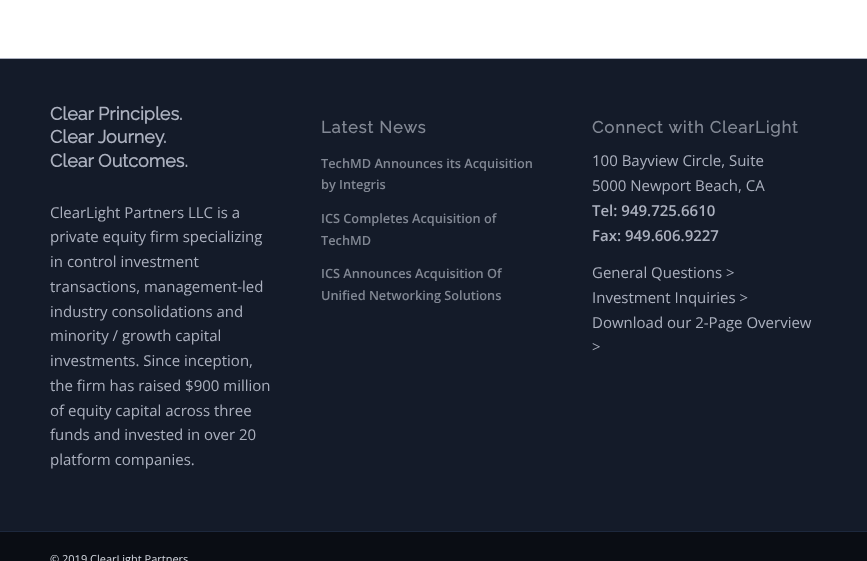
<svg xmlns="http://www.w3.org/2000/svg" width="867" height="561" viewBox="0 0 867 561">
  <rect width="100%" height="100%" fill="#ffffff"/>
  <rect x="0" y="59" width="867" height="472" fill="#141b29"/>
  <rect x="0" y="58" width="867" height="1" fill="#acb1bf"/>
  <text x="50" y="120" font-family="Raleway" font-size="18" font-weight="bold" fill="#acb1bf">Clear Principles.</text>
  <text x="50" y="143" font-family="Raleway" font-size="18" font-weight="bold" fill="#acb1bf">Clear Journey.</text>
  <text x="50" y="167" font-family="Raleway" font-size="18" font-weight="bold" fill="#acb1bf">Clear Outcomes.</text>
  <text x="50" y="218" font-family="Open Sans" font-size="15" fill="#acb1bf">ClearLight Partners LLC is a</text>
  <text x="50" y="242" font-family="Open Sans" font-size="15" fill="#acb1bf">private equity firm specializing</text>
  <text x="50" y="267" font-family="Open Sans" font-size="15" fill="#acb1bf">in control investment</text>
  <text x="50" y="292" font-family="Open Sans" font-size="15" fill="#acb1bf">transactions, management-led</text>
  <text x="50" y="317" font-family="Open Sans" font-size="15" fill="#acb1bf">industry consolidations and</text>
  <text x="50" y="341" font-family="Open Sans" font-size="15" fill="#acb1bf">minority / growth capital</text>
  <text x="50" y="366" font-family="Open Sans" font-size="15" fill="#acb1bf">investments. Since inception,</text>
  <text x="50" y="391" font-family="Open Sans" font-size="15" fill="#acb1bf">the firm has raised $900 million</text>
  <text x="50" y="416" font-family="Open Sans" font-size="15" fill="#acb1bf">of equity capital across three</text>
  <text x="50" y="440" font-family="Open Sans" font-size="15" fill="#acb1bf">funds and invested in over 20</text>
  <text x="50" y="465" font-family="Open Sans" font-size="15" fill="#acb1bf">platform companies.</text>
  <text x="321" y="133" font-family="Raleway" font-size="16.5" font-weight="bold" letter-spacing="1" fill="#828894">Latest News</text>
  <text x="321" y="168" font-family="Open Sans" font-size="12.75" font-weight="600" fill="#828894">TechMD Announces its Acquisition</text>
  <text x="321" y="189" font-family="Open Sans" font-size="12.75" font-weight="600" fill="#828894">by Integris</text>
  <text x="321" y="223" font-family="Open Sans" font-size="12.75" font-weight="600" fill="#828894">ICS Completes Acquisition of</text>
  <text x="321" y="245" font-family="Open Sans" font-size="12.75" font-weight="600" fill="#828894">TechMD</text>
  <text x="321" y="278" font-family="Open Sans" font-size="12.75" font-weight="600" fill="#828894">ICS Announces Acquisition Of</text>
  <text x="321" y="300" font-family="Open Sans" font-size="12.75" font-weight="600" fill="#828894">Unified Networking Solutions</text>
  <text x="592" y="133" font-family="Raleway" font-size="16.5" font-weight="bold" letter-spacing="1" fill="#828894">Connect with ClearLight</text>
  <text x="592" y="166" font-family="Open Sans" font-size="15" fill="#acb1bf">100 Bayview Circle, Suite</text>
  <text x="592" y="191" font-family="Open Sans" font-size="15" fill="#acb1bf">5000 Newport Beach, CA</text>
  <text x="592" y="216" font-family="Open Sans" font-size="15" font-weight="600" fill="#acb1bf">Tel: 949.725.6610</text>
  <text x="592" y="241" font-family="Open Sans" font-size="15" font-weight="600" fill="#acb1bf">Fax: 949.606.9227</text>
  <text x="592" y="278" font-family="Open Sans" font-size="15" fill="#acb1bf">General Questions &gt;</text>
  <text x="592" y="303" font-family="Open Sans" font-size="15" fill="#acb1bf">Investment Inquiries &gt;</text>
  <text x="592" y="328" font-family="Open Sans" font-size="15" fill="#acb1bf">Download our 2-Page Overview</text>
  <text x="592" y="352" font-family="Open Sans" font-size="15" fill="#acb1bf">&gt;</text>
  <rect x="0" y="532" width="867" height="29" fill="#0a0d14"/>
  <rect x="0" y="531" width="867" height="1" fill="#1d283d"/>
  <text x="50" y="563" font-family="Open Sans" font-size="11" fill="#d6dae2">© 2019 ClearLight Partners</text>
</svg>
